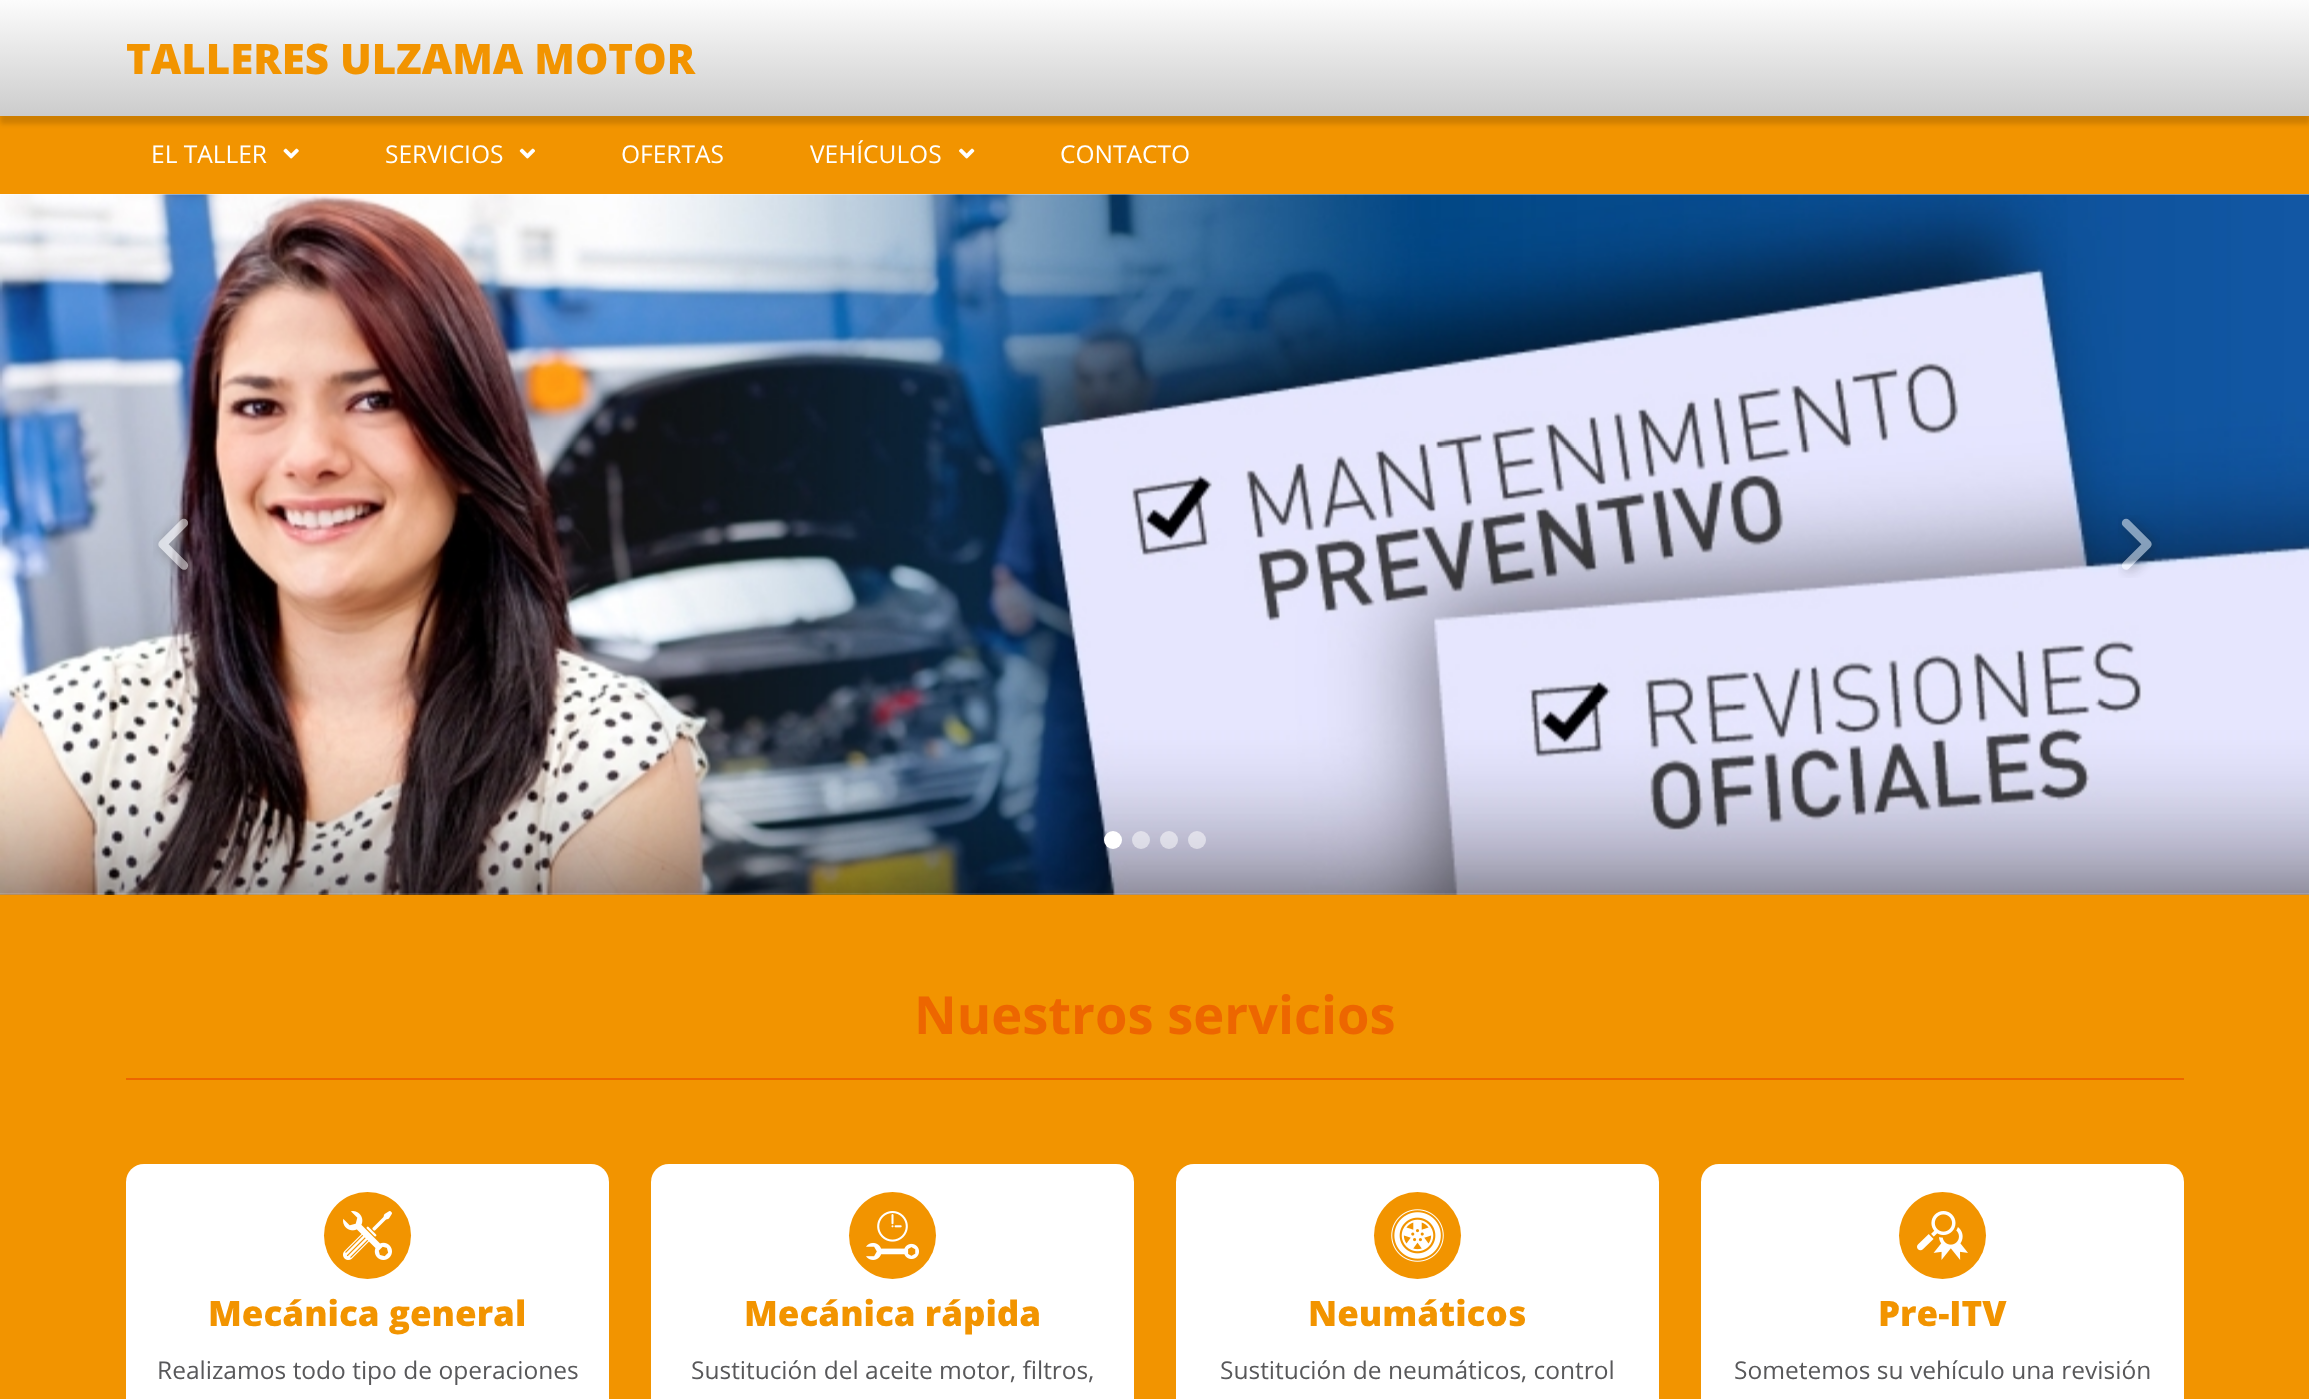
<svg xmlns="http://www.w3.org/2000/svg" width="2309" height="1399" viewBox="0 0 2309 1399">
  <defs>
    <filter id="blur1" x="-50%" y="-200%" width="200%" height="500%"><feGaussianBlur stdDeviation="2.5"/></filter>
    <linearGradient id="g1" gradientUnits="userSpaceOnUse" x1="1155" y1="0" x2="1155" y2="116"><stop offset="0" stop-color="#fcfcfc"/><stop offset="1" stop-color="#cccccc"/></linearGradient>
  </defs>
  <rect width="100%" height="100%" fill="#ffffff"/>
  <rect x="0" y="116" width="2309" height="78" fill="#f29400"/>
  <rect x="0" y="9" width="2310" height="115" fill="#000000" fill-opacity="0.15" filter="url(#blur1)"/>
  <rect x="0" y="0" width="2309" height="116" fill="url(#g1)"/>
  <text x="126" y="74" font-family="Open Sans" font-size="42" font-weight="800" fill="#f29400">TALLERES ULZAMA MOTOR</text>
  <text x="151" y="163" font-family="Open Sans" font-size="24.5" fill="#ffffff">EL TALLER</text>
  <image x="283" y="148" width="16" height="11" href="img1.png"/>
  <text x="385" y="163" font-family="Open Sans" font-size="24.5" fill="#ffffff">SERVICIOS</text>
  <image x="519" y="148" width="16" height="11" href="img2.png"/>
  <text x="621" y="163" font-family="Open Sans" font-size="24.5" fill="#ffffff">OFERTAS</text>
  <text x="810" y="163" font-family="Open Sans" font-size="24.5" fill="#ffffff">VEHÍCULOS</text>
  <image x="959" y="148" width="16" height="11" href="img3.png"/>
  <text x="1060" y="163" font-family="Open Sans" font-size="24.5" fill="#ffffff">CONTACTO</text>
  <rect x="0" y="894" width="2309" height="505" fill="#f29400"/>
  <image x="0" y="194" width="2309" height="701" href="img4.png"/>
  <image x="153" y="515" width="41" height="60" href="img5.png"/>
  <image x="2118" y="515" width="42" height="63" href="img6.png"/>
  <circle cx="1113" cy="840" r="9" fill="#ffffff"/>
  <circle cx="1141" cy="840" r="9" fill="#ffffff" fill-opacity="0.5"/>
  <circle cx="1169" cy="840" r="9" fill="#ffffff" fill-opacity="0.5"/>
  <circle cx="1197" cy="840" r="9" fill="#ffffff" fill-opacity="0.5"/>
  <rect x="126" y="1078" width="2058" height="2" fill="#ed6600"/>
  <text x="914" y="1034" font-family="Open Sans" font-size="52.5" font-weight="bold" fill="#ed6600">Nuestros servicios</text>
  <rect x="126" y="1164" width="483" height="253" rx="18" fill="#ffffff"/>
  <circle cx="367.5" cy="1235.5" r="43.5" fill="#f29400"/>
  <image x="343" y="1211" width="49" height="49" href="img7.png"/>
  <text x="208" y="1326" font-family="Open Sans" font-size="35" font-weight="800" fill="#f29400">Mecánica general</text>
  <text x="157" y="1379" font-family="Open Sans" font-size="24.5" fill="#58585a">Realizamos todo tipo de operaciones</text>
  <rect x="651" y="1164" width="483" height="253" rx="18" fill="#ffffff"/>
  <circle cx="892.5" cy="1235.5" r="43.5" fill="#f29400"/>
  <image x="866" y="1211" width="53" height="49" href="img8.png"/>
  <text x="744" y="1326" font-family="Open Sans" font-size="35" font-weight="800" fill="#f29400">Mecánica rápida</text>
  <text x="691" y="1379" font-family="Open Sans" font-size="24.5" fill="#58585a">Sustitución del aceite motor, filtros,</text>
  <rect x="1176" y="1164" width="483" height="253" rx="18" fill="#ffffff"/>
  <circle cx="1417.5" cy="1235.5" r="43.5" fill="#f29400"/>
  <image x="1391" y="1209" width="53" height="53" href="img9.png"/>
  <text x="1308" y="1326" font-family="Open Sans" font-size="35" font-weight="800" fill="#f29400">Neumáticos</text>
  <text x="1220" y="1379" font-family="Open Sans" font-size="24.5" fill="#58585a">Sustitución de neumáticos, control</text>
  <rect x="1701" y="1164" width="483" height="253" rx="18" fill="#ffffff"/>
  <circle cx="1942.5" cy="1235.5" r="43.5" fill="#f29400"/>
  <image x="1917" y="1211" width="51" height="49" href="img10.png"/>
  <text x="1878" y="1326" font-family="Open Sans" font-size="35" font-weight="800" fill="#f29400">Pre-ITV</text>
  <text x="1734" y="1379" font-family="Open Sans" font-size="24.5" fill="#58585a">Sometemos su vehículo una revisión</text>
</svg>
